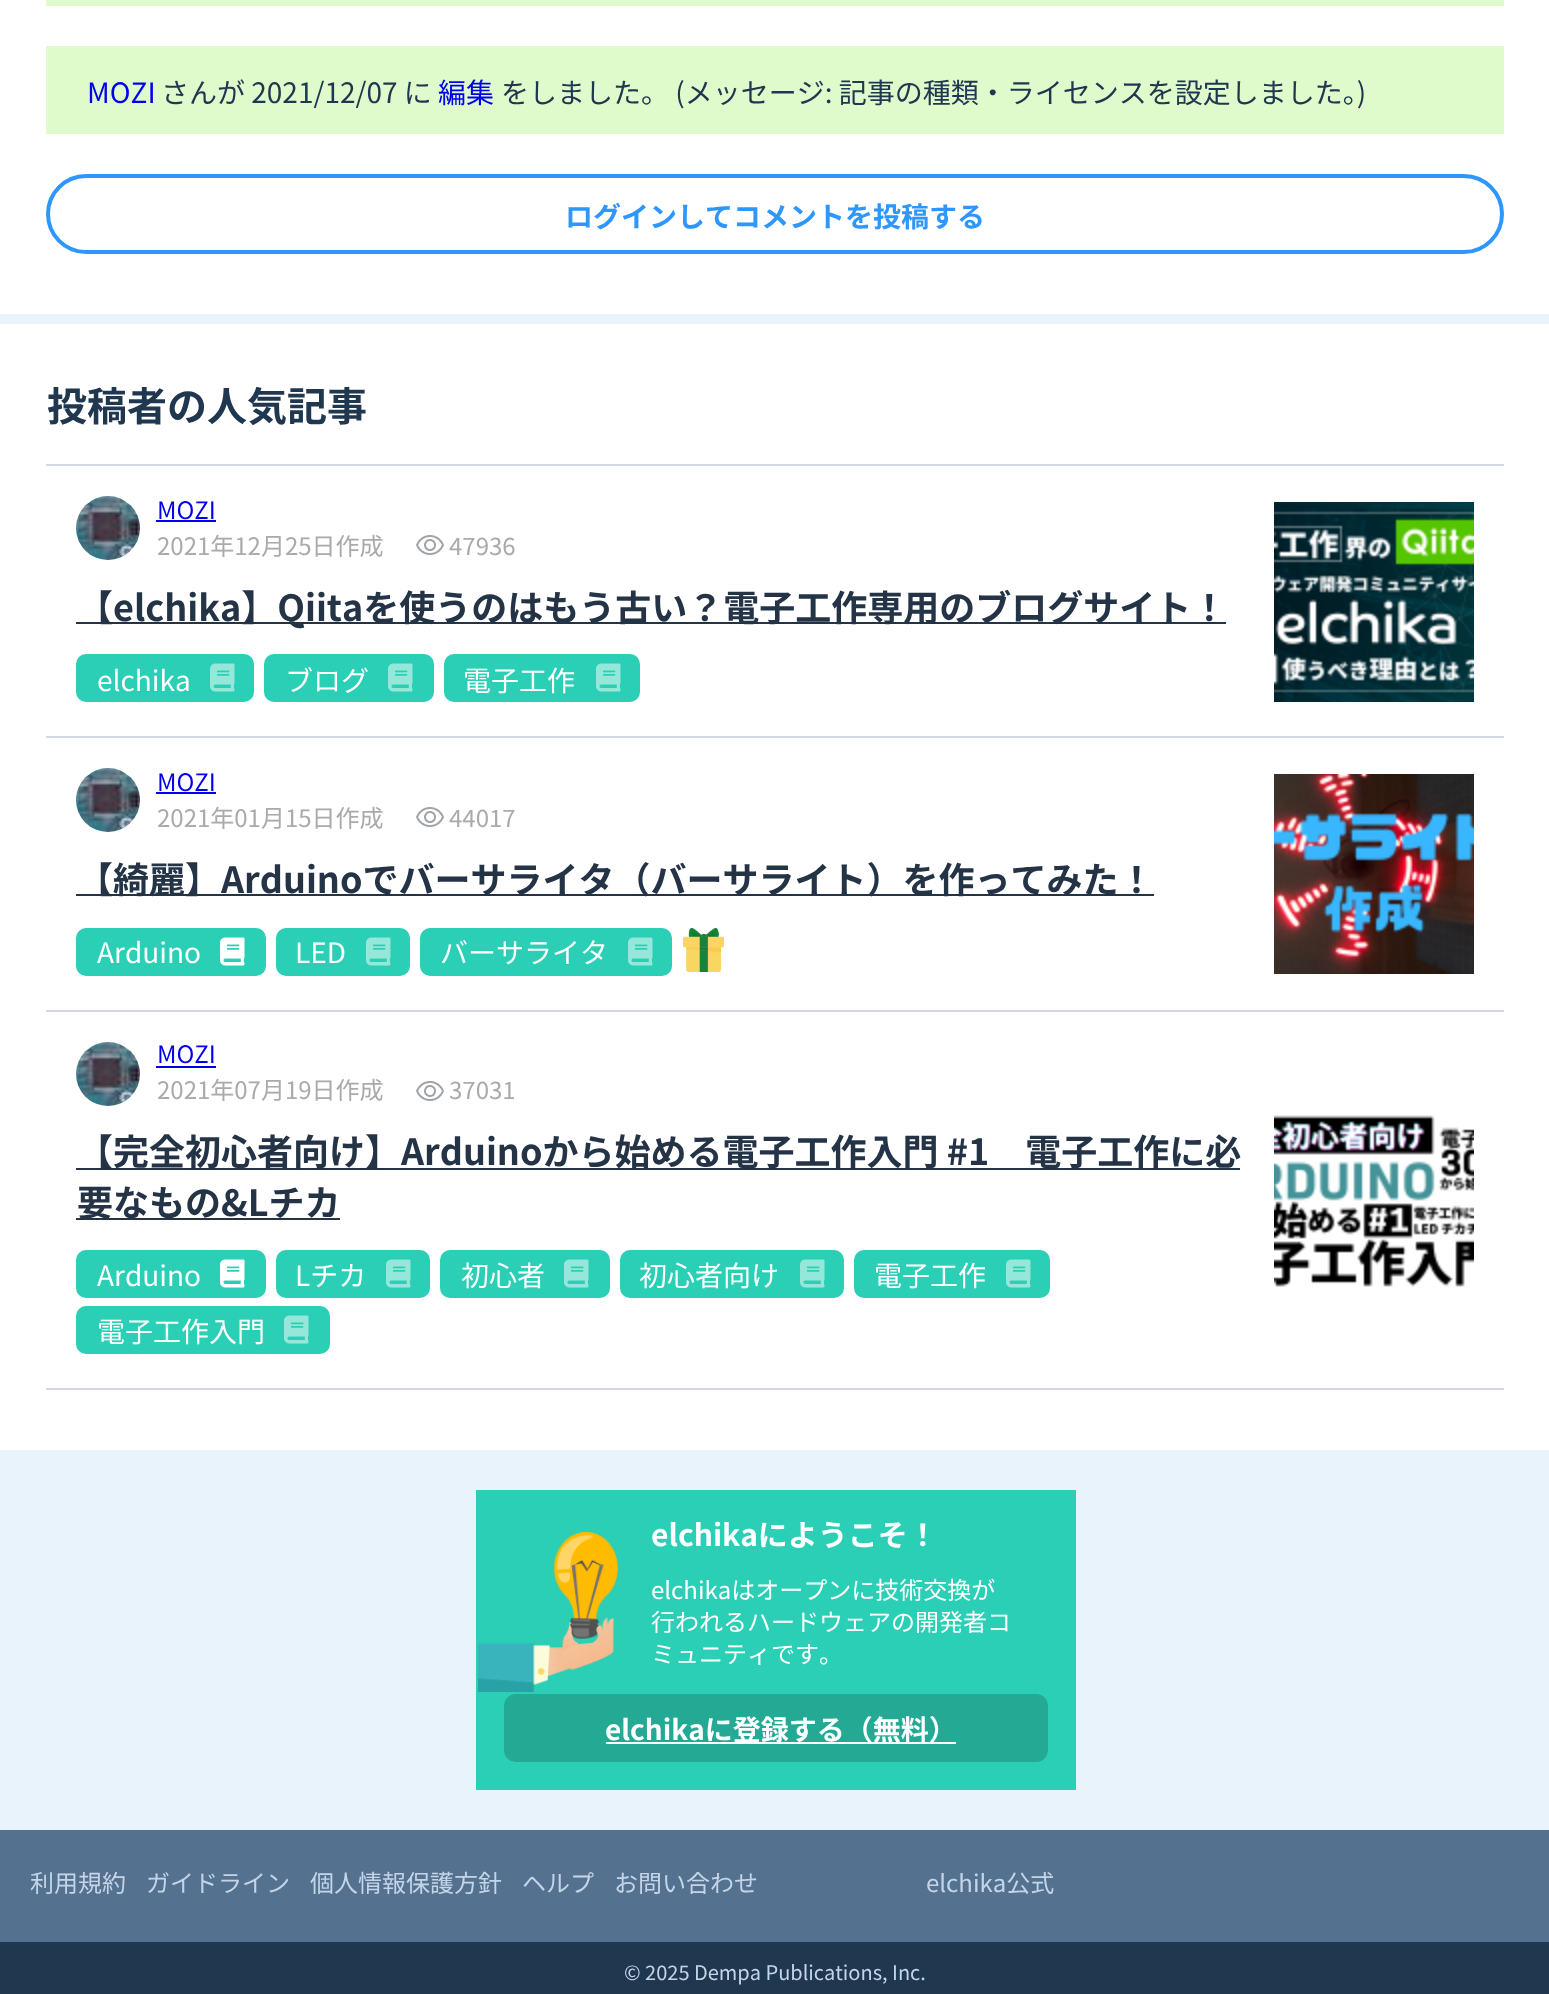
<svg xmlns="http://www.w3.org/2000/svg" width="1549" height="1994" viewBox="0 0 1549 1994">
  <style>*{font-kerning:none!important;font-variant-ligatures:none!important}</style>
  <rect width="100%" height="100%" fill="#e8f3fb"/>
  <rect x="0" y="0" width="1549" height="314" fill="#ffffff"/>
  <rect x="46" y="0" width="1458" height="6" fill="#dffbcb"/>
  <rect x="46" y="46" width="1458" height="88" fill="#dffbcb"/>
  <text x="87" y="103" font-family="Noto Sans JP" font-size="28" fill="#0000ee">MOZI</text>
  <text x="161" y="103" font-family="Noto Sans JP" font-size="28" fill="#203750">さんが 2021/12/07 に</text>
  <text x="438" y="103" font-family="Noto Sans JP" font-size="28" fill="#0000ee">編集</text>
  <text x="501" y="103" font-family="Noto Sans JP" font-size="28" fill="#203750">をしました。 (メッセージ: 記事の種類・ライセンスを設定しました。)</text>
  <rect x="48" y="176" width="1454" height="76" rx="38" fill="none" stroke="#2d97ff" stroke-width="4"/>
  <text x="565" y="227" font-family="Noto Sans JP" font-size="28" font-weight="bold" fill="#2d97ff">ログインしてコメントを投稿する</text>
  <rect x="0" y="324" width="1549" height="1126" fill="#ffffff"/>
  <text x="47" y="421" font-family="Noto Sans JP" font-size="40" font-weight="bold" fill="#203750">投稿者の人気記事</text>
  <rect x="46" y="464" width="1458" height="2" fill="#d4d7e2"/>
  <image x="76" y="496" width="64" height="64" href="img1.png"/>
  <text x="157" y="519" font-family="Noto Sans JP" font-size="24" fill="#0000ee">MOZI</text>
  <rect x="156" y="520" width="60" height="2" fill="#0000ee"/>
  <text x="157" y="555" font-family="Noto Sans JP" font-size="24" fill="#aaaaaa">2021年12月25日作成</text>
  <image x="416" y="535" width="28" height="20" href="img2.png"/>
  <text x="449" y="555" font-family="Noto Sans JP" font-size="24" fill="#aaaaaa">47936</text>
  <image x="1274" y="502" width="200" height="200" href="img3.png"/>
  <rect x="76" y="622" width="1150" height="2" fill="#243446"/>
  <text x="77" y="621" font-family="Noto Sans JP" font-size="36" font-weight="bold" fill="#243446">【elchika】Qiitaを使うのはもう古い？電子工作専用のブログサイト！</text>
  <rect x="76" y="654" width="178" height="48" rx="10" fill="#2bcfb5"/>
  <text x="97" y="691" font-family="Noto Sans JP" font-size="28" fill="#ffffff">elchika</text>
  <image x="210" y="663" width="25" height="29" href="img4.png"/>
  <rect x="264" y="654" width="170" height="48" rx="10" fill="#2bcfb5"/>
  <text x="285" y="691" font-family="Noto Sans JP" font-size="28" fill="#ffffff">ブログ</text>
  <image x="388" y="663" width="25" height="29" href="img4.png"/>
  <rect x="444" y="654" width="196" height="48" rx="10" fill="#2bcfb5"/>
  <text x="463" y="691" font-family="Noto Sans JP" font-size="28" fill="#ffffff">電子工作</text>
  <image x="596" y="663" width="25" height="29" href="img4.png"/>
  <rect x="46" y="736" width="1458" height="2" fill="#d4d7e2"/>
  <image x="76" y="768" width="64" height="64" href="img5.png"/>
  <text x="157" y="791" font-family="Noto Sans JP" font-size="24" fill="#0000ee">MOZI</text>
  <rect x="156" y="792" width="60" height="2" fill="#0000ee"/>
  <text x="157" y="827" font-family="Noto Sans JP" font-size="24" fill="#aaaaaa">2021年01月15日作成</text>
  <image x="416" y="807" width="28" height="20" href="img2.png"/>
  <text x="449" y="827" font-family="Noto Sans JP" font-size="24" fill="#aaaaaa">44017</text>
  <image x="1274" y="774" width="200" height="200" href="img6.png"/>
  <rect x="76" y="894" width="1078" height="2" fill="#243446"/>
  <text x="77" y="893" font-family="Noto Sans JP" font-size="36" font-weight="bold" fill="#243446">【綺麗】Arduinoでバーサライタ（バーサライト）を作ってみた！</text>
  <rect x="76" y="928" width="190" height="48" rx="10" fill="#2bcfb5"/>
  <text x="97" y="963" font-family="Noto Sans JP" font-size="28" fill="#ffffff">Arduino</text>
  <image x="220" y="937" width="25" height="29" href="img7.png"/>
  <rect x="276" y="928" width="134" height="48" rx="10" fill="#2bcfb5"/>
  <text x="295" y="963" font-family="Noto Sans JP" font-size="28" fill="#ffffff">LED</text>
  <image x="366" y="937" width="25" height="29" href="img4.png"/>
  <rect x="420" y="928" width="252" height="48" rx="10" fill="#2bcfb5"/>
  <text x="440" y="963" font-family="Noto Sans JP" font-size="28" fill="#ffffff">バーサライタ</text>
  <image x="628" y="937" width="25" height="29" href="img4.png"/>
  <image x="683" y="928" width="41" height="44" href="img8.png"/>
  <rect x="46" y="1010" width="1458" height="2" fill="#d4d7e2"/>
  <rect x="46" y="1388" width="1458" height="2" fill="#d4d7e2"/>
  <image x="76" y="1042" width="64" height="64" href="img9.png"/>
  <text x="157" y="1063" font-family="Noto Sans JP" font-size="24" fill="#0000ee">MOZI</text>
  <rect x="156" y="1066" width="60" height="2" fill="#0000ee"/>
  <text x="157" y="1099" font-family="Noto Sans JP" font-size="24" fill="#aaaaaa">2021年07月19日作成</text>
  <image x="416" y="1081" width="28" height="20" href="img2.png"/>
  <text x="449" y="1099" font-family="Noto Sans JP" font-size="24" fill="#aaaaaa">37031</text>
  <rect x="76" y="1168" width="1164" height="2" fill="#243446"/>
  <text x="77" y="1165" font-family="Noto Sans JP" font-size="36" font-weight="bold" fill="#243446">【完全初心者向け】Arduinoから始める電子工作入門 #1　電子工作に必</text>
  <rect x="76" y="1218" width="264" height="2" fill="#243446"/>
  <text x="77" y="1216" font-family="Noto Sans JP" font-size="36" font-weight="bold" fill="#243446">要なもの&amp;Lチカ</text>
  <image x="1274" y="1115" width="200" height="172" href="img10.png"/>
  <rect x="76" y="1250" width="190" height="48" rx="10" fill="#2bcfb5"/>
  <text x="97" y="1286" font-family="Noto Sans JP" font-size="28" fill="#ffffff">Arduino</text>
  <image x="220" y="1259" width="25" height="29" href="img7.png"/>
  <rect x="276" y="1250" width="154" height="48" rx="10" fill="#2bcfb5"/>
  <text x="295" y="1286" font-family="Noto Sans JP" font-size="28" fill="#ffffff">Lチカ</text>
  <image x="386" y="1259" width="25" height="29" href="img4.png"/>
  <rect x="440" y="1250" width="170" height="48" rx="10" fill="#2bcfb5"/>
  <text x="461" y="1286" font-family="Noto Sans JP" font-size="28" fill="#ffffff">初心者</text>
  <image x="564" y="1259" width="25" height="29" href="img4.png"/>
  <rect x="620" y="1250" width="224" height="48" rx="10" fill="#2bcfb5"/>
  <text x="639" y="1286" font-family="Noto Sans JP" font-size="28" fill="#ffffff">初心者向け</text>
  <image x="800" y="1259" width="25" height="29" href="img4.png"/>
  <rect x="854" y="1250" width="196" height="48" rx="10" fill="#2bcfb5"/>
  <text x="874" y="1286" font-family="Noto Sans JP" font-size="28" fill="#ffffff">電子工作</text>
  <image x="1006" y="1259" width="25" height="29" href="img4.png"/>
  <rect x="76" y="1306" width="254" height="48" rx="10" fill="#2bcfb5"/>
  <text x="97" y="1342" font-family="Noto Sans JP" font-size="28" fill="#ffffff">電子工作入門</text>
  <image x="284" y="1315" width="25" height="29" href="img4.png"/>
  <rect x="476" y="1490" width="600" height="300" fill="#2bcfb5"/>
  <image x="478" y="1532" width="140" height="160" href="img11.png"/>
  <text x="651" y="1546" font-family="Noto Sans JP" font-size="30" font-weight="bold" fill="#ffffff">elchikaにようこそ！</text>
  <text x="651" y="1599" font-family="Noto Sans JP" font-size="24" fill="#ffffff">elchikaはオープンに技術交換が</text>
  <text x="651" y="1631" font-family="Noto Sans JP" font-size="24" fill="#ffffff">行われるハードウェアの開発者コ</text>
  <text x="651" y="1663" font-family="Noto Sans JP" font-size="24" fill="#ffffff">ミュニティです。</text>
  <rect x="504" y="1694" width="544" height="68" rx="12" fill="#23a994"/>
  <rect x="606" y="1742" width="350" height="2" fill="#ffffff"/>
  <text x="605" y="1740" font-family="Noto Sans JP" font-size="28" font-weight="bold" fill="#ffffff">elchikaに登録する（無料）</text>
  <rect x="0" y="1830" width="1549" height="112" fill="#547190"/>
  <text x="30" y="1892" font-family="Noto Sans JP" font-size="24" fill="#c4d5e8">利用規約</text>
  <text x="146" y="1892" font-family="Noto Sans JP" font-size="24" fill="#c4d5e8">ガイドライン</text>
  <text x="310" y="1892" font-family="Noto Sans JP" font-size="24" fill="#c4d5e8">個人情報保護方針</text>
  <text x="522" y="1892" font-family="Noto Sans JP" font-size="24" fill="#c4d5e8">ヘルプ</text>
  <text x="614" y="1892" font-family="Noto Sans JP" font-size="24" fill="#c4d5e8">お問い合わせ</text>
  <text x="926" y="1892" font-family="Noto Sans JP" font-size="24" fill="#c4d5e8">elchika公式</text>
  <rect x="0" y="1942" width="1549" height="52" fill="#203750"/>
  <text x="624" y="1980" font-family="Noto Sans JP" font-size="20" fill="#c4d5e8">© 2025 Dempa Publications, Inc.</text>
</svg>
